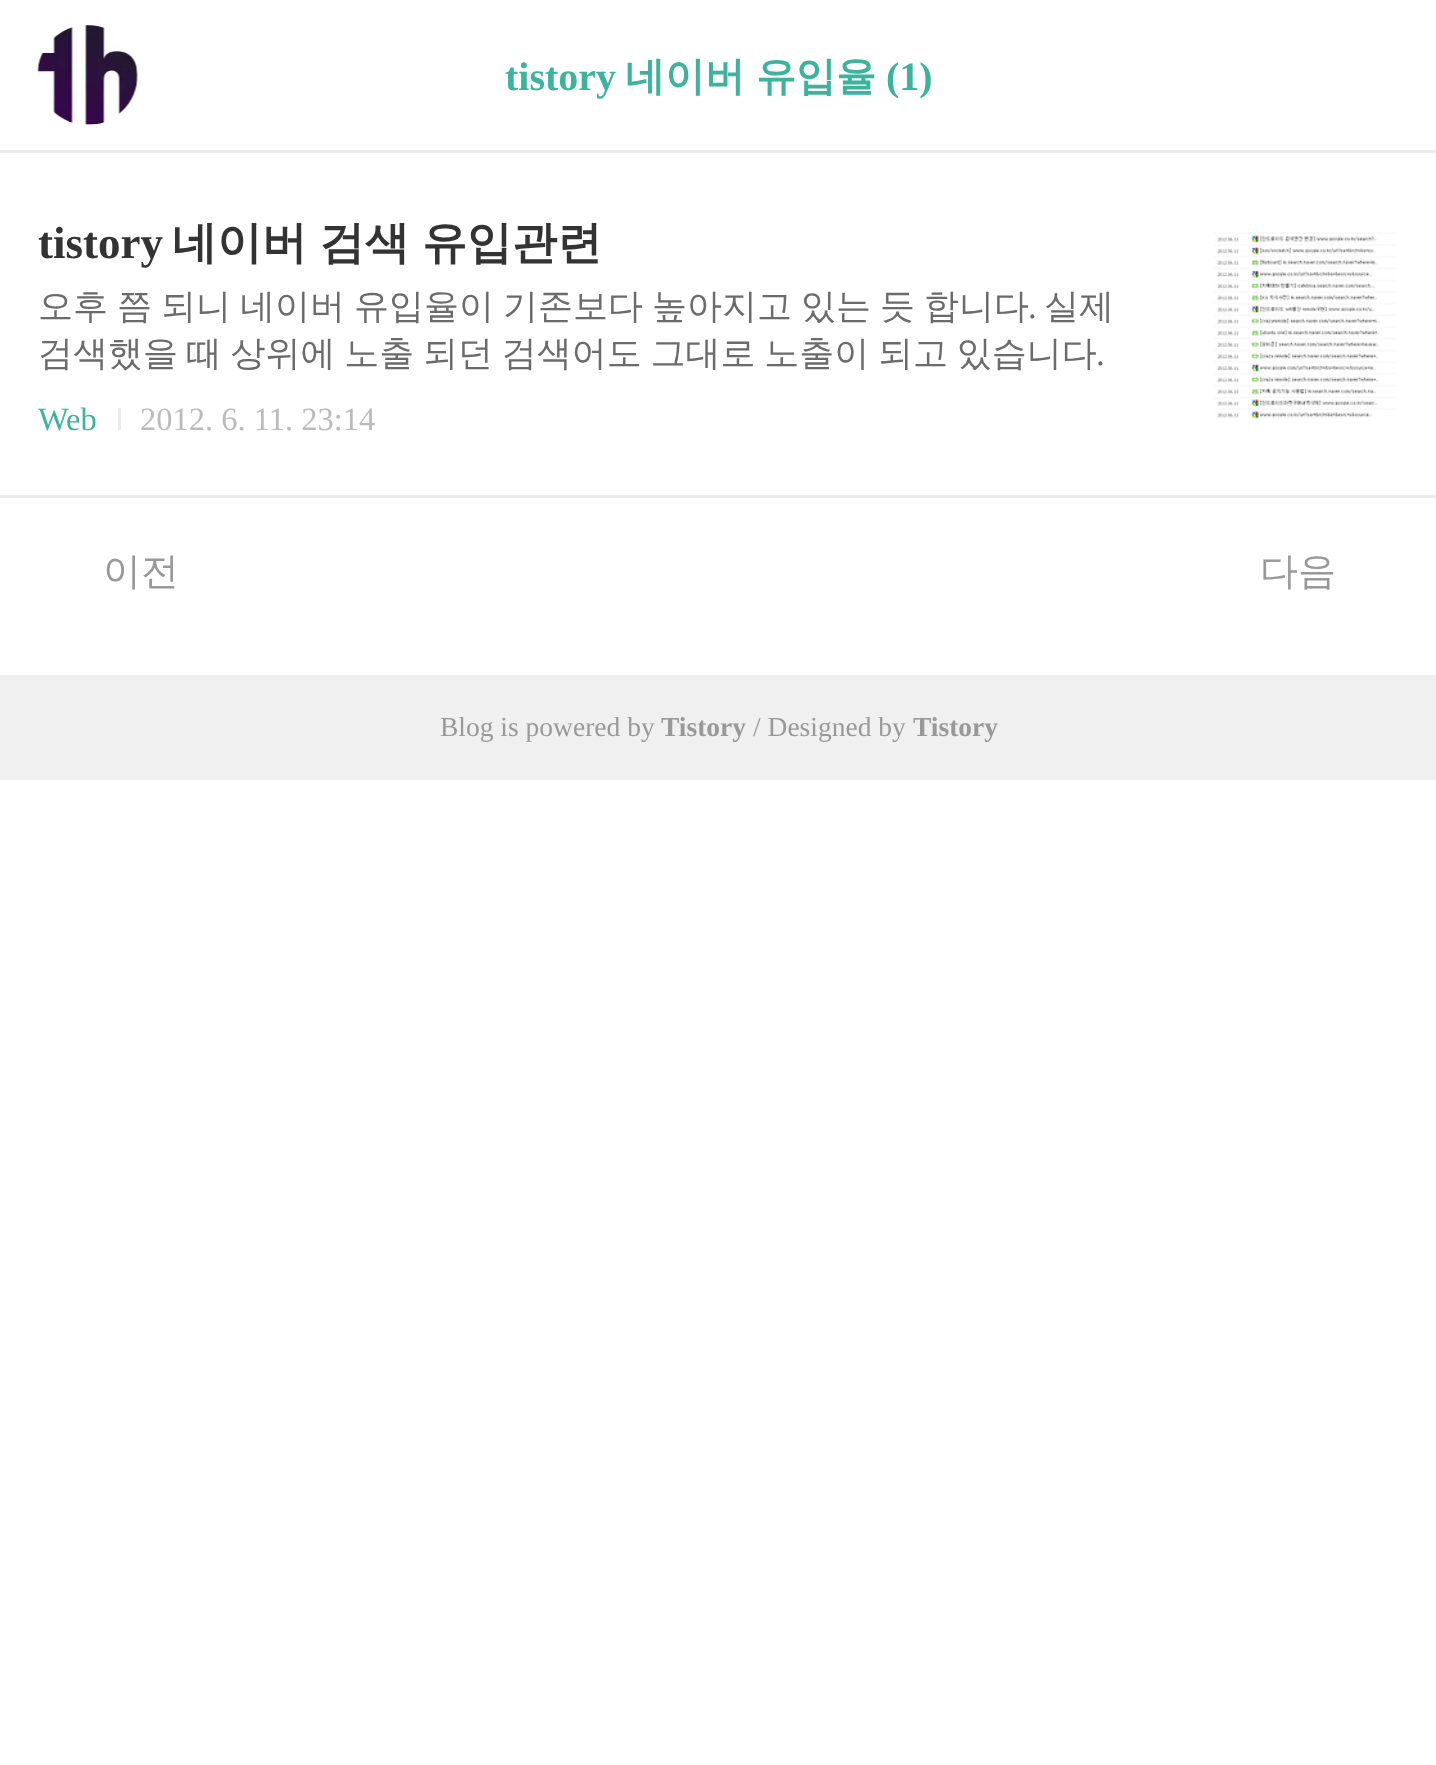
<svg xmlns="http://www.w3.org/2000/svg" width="1436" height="1765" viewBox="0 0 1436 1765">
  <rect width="100%" height="100%" fill="#ffffff"/>
  <rect x="0" y="150" width="1436" height="3" fill="#ebebeb"/>
  <image x="37" y="25" width="101" height="100" href="img1.png"/>
  <text x="505" y="90" font-family="Liberation Serif" font-size="40" font-weight="bold" fill="#3db39e">tistory</text>
  <text x="625" y="90" word-spacing="-1" font-family="WenQuanYi Zen Hei" font-size="40" font-weight="bold" fill="#3db39e">네이버 유입율</text>
  <text x="886" y="90" font-family="Liberation Serif" font-size="40" font-weight="bold" fill="#3db39e">(1)</text>
  <rect x="0" y="495" width="1436" height="3" fill="#ebebeb"/>
  <text x="38" y="258" font-family="Liberation Serif" font-size="45" font-weight="bold" fill="#333333">tistory</text>
  <text x="172" y="258" word-spacing="-1" font-family="WenQuanYi Zen Hei" font-size="45" font-weight="bold" fill="#333333">네이버 검색 유입관련</text>
  <text x="38" y="318" word-spacing="-1.5" font-family="WenQuanYi Zen Hei" font-size="35" font-weight="500" fill="#6b6b6b">오후 쯤 되니 네이버 유입율이 기존보다 높아지고 있는 듯 합니다</text>
  <text x="1028" y="318" font-family="Liberation Serif" font-size="35" fill="#6b6b6b">.</text>
  <text x="1044" y="318" font-family="WenQuanYi Zen Hei" font-size="35" font-weight="500" fill="#6b6b6b">실제</text>
  <text x="38" y="365" word-spacing="-1.75" font-family="WenQuanYi Zen Hei" font-size="35" font-weight="500" fill="#6b6b6b">검색했을 때 상위에 노출 되던 검색어도 그대로 노출이 되고 있습니다</text>
  <text x="1096" y="365" font-family="Liberation Serif" font-size="35" fill="#6b6b6b">.</text>
  <image x="1214" y="232" width="182" height="187" href="img2.png"/>
  <text x="38" y="430" font-family="Liberation Serif" font-size="32.5" fill="#3db39e">Web</text>
  <rect x="118" y="408" width="3" height="22" fill="#ebebeb"/>
  <text x="140" y="430" font-family="Liberation Serif" font-size="32.5" fill="#bbbbbb">2012. 6. 11. 23:14</text>
  <text x="103" y="584" font-family="WenQuanYi Zen Hei" font-size="38" font-weight="500" fill="#999999">이전</text>
  <text x="1260" y="584" font-family="WenQuanYi Zen Hei" font-size="38" font-weight="500" fill="#999999">다음</text>
  <rect x="0" y="675" width="1436" height="105" fill="#f0f0f0"/>
  <text x="440" y="736" font-family="Liberation Serif" font-size="27.5" fill="#999999">Blog is powered by</text>
  <text x="661" y="736" font-family="Liberation Serif" font-size="27.5" font-weight="bold" fill="#999999">Tistory</text>
  <text x="753" y="736" font-family="Liberation Serif" font-size="27.5" fill="#999999">/ Designed by</text>
  <text x="913" y="736" font-family="Liberation Serif" font-size="27.5" font-weight="bold" fill="#999999">Tistory</text>
</svg>
